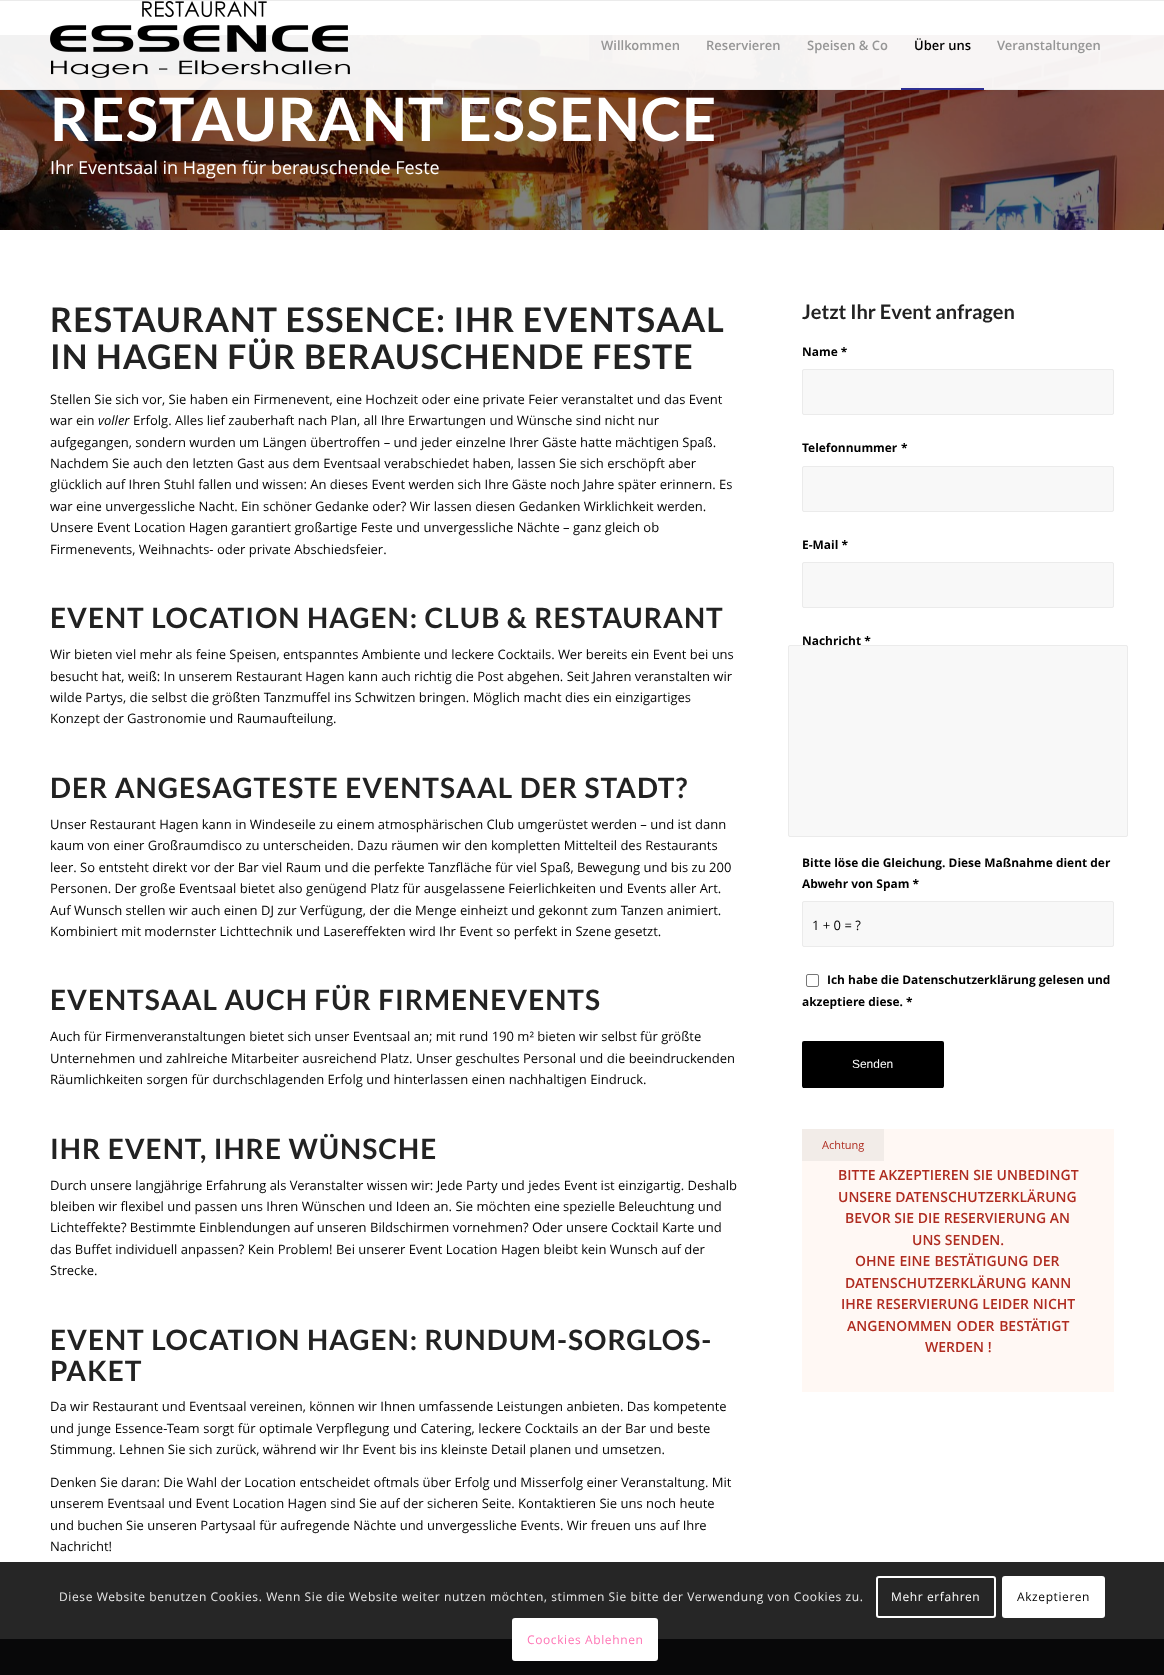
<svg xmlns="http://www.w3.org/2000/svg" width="1164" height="1675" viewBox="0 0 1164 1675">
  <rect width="100%" height="100%" fill="#ffffff"/>
  <rect x="0" y="1562" width="1164" height="77" fill="#262626"/>
  <image x="0" y="35" width="1164" height="195" href="img2.png"/>
  <rect x="0" y="35" width="1164" height="54" fill="#ffffff" fill-opacity="0.95"/>
  <rect x="0" y="0" width="1164" height="1" fill="#ebebeb"/>
  <rect x="0" y="89" width="1164" height="1" fill="#ebebeb"/>
  <image x="50" y="1" width="300" height="77" href="img1.png"/>
  <text x="601" y="50" font-family="Open Sans" font-size="13" font-weight="600" fill="#969696">Willkommen</text>
  <text x="706" y="50" font-family="Open Sans" font-size="13" font-weight="600" fill="#969696">Reservieren</text>
  <text x="807" y="50" font-family="Open Sans" font-size="13" font-weight="600" fill="#969696">Speisen &amp; Co</text>
  <text x="914" y="50" font-family="Open Sans" font-size="13" font-weight="600" fill="#000000">Über uns</text>
  <rect x="901" y="88" width="83" height="2" fill="#2e2f92"/>
  <text x="997" y="50" font-family="Open Sans" font-size="13" font-weight="600" fill="#969696">Veranstaltungen</text>
  <text x="50" y="141" font-family="Lato" font-size="60" font-weight="bold" letter-spacing="1" fill="#ffffff">RESTAURANT ESSENCE</text>
  <text x="50" y="174" font-family="Open Sans" font-size="18" fill="#ffffff">Ihr Eventsaal in Hagen für berauschende Feste</text>
  <text x="50" y="332" font-family="Lato" font-size="34" font-weight="bold" letter-spacing="1" fill="#222222">RESTAURANT ESSENCE: IHR EVENTSAAL</text>
  <text x="50" y="369" font-family="Lato" font-size="34" font-weight="bold" letter-spacing="1" fill="#222222">IN HAGEN FÜR BERAUSCHENDE FESTE</text>
  <text x="50" y="404" font-family="Open Sans" font-size="13" fill="#000000">Stellen Sie sich vor, Sie haben ein Firmenevent, eine Hochzeit oder eine private Feier veranstaltet und das Event</text>
  <text x="50" y="425" font-family="Open Sans" font-size="13" fill="#000000">war ein</text>
  <text x="98" y="425" font-family="Open Sans" font-size="13" font-style="italic" fill="#000000">voller</text>
  <text x="133" y="425" font-family="Open Sans" font-size="13" fill="#000000">Erfolg. Alles lief zauberhaft nach Plan, all Ihre Erwartungen und Wünsche sind nicht nur</text>
  <text x="50" y="447" font-family="Open Sans" font-size="13" fill="#000000">aufgegangen, sondern wurden um Längen übertroffen – und jeder einzelne Ihrer Gäste hatte mächtigen Spaß.</text>
  <text x="50" y="468" font-family="Open Sans" font-size="13" fill="#000000">Nachdem Sie auch den letzten Gast aus dem Eventsaal verabschiedet haben, lassen Sie sich erschöpft aber</text>
  <text x="50" y="489" font-family="Open Sans" font-size="13" fill="#000000">glücklich auf Ihren Stuhl fallen und wissen: An dieses Event werden sich Ihre Gäste noch Jahre später erinnern. Es</text>
  <text x="50" y="511" font-family="Open Sans" font-size="13" fill="#000000">war eine unvergessliche Nacht. Ein schöner Gedanke oder? Wir lassen diesen Gedanken Wirklichkeit werden.</text>
  <text x="50" y="532" font-family="Open Sans" font-size="13" fill="#000000">Unsere Event Location Hagen garantiert großartige Feste und unvergessliche Nächte – ganz gleich ob</text>
  <text x="50" y="554" font-family="Open Sans" font-size="13" fill="#000000">Firmenevents, Weihnachts- oder private Abschiedsfeier.</text>
  <text x="50" y="628" font-family="Lato" font-size="28" font-weight="bold" letter-spacing="1" fill="#222222">EVENT LOCATION HAGEN: CLUB &amp; RESTAURANT</text>
  <text x="50" y="659" font-family="Open Sans" font-size="13" fill="#000000">Wir bieten viel mehr als feine Speisen, entspanntes Ambiente und leckere Cocktails. Wer bereits ein Event bei uns</text>
  <text x="50" y="681" font-family="Open Sans" font-size="13" fill="#000000">besucht hat, weiß: In unserem Restaurant Hagen kann auch richtig die Post abgehen. Seit Jahren veranstalten wir</text>
  <text x="50" y="702" font-family="Open Sans" font-size="13" fill="#000000">wilde Partys, die selbst die größten Tanzmuffel ins Schwitzen bringen. Möglich macht dies ein einzigartiges</text>
  <text x="50" y="723" font-family="Open Sans" font-size="13" fill="#000000">Konzept der Gastronomie und Raumaufteilung.</text>
  <text x="50" y="798" font-family="Lato" font-size="28" font-weight="bold" letter-spacing="1" fill="#222222">DER ANGESAGTESTE EVENTSAAL DER STADT?</text>
  <text x="50" y="829" font-family="Open Sans" font-size="13" fill="#000000">Unser Restaurant Hagen kann in Windeseile zu einem atmosphärischen Club umgerüstet werden – und ist dann</text>
  <text x="50" y="850" font-family="Open Sans" font-size="13" fill="#000000">kaum von einer Großraumdisco zu unterscheiden. Dazu räumen wir den kompletten Mittelteil des Restaurants</text>
  <text x="50" y="872" font-family="Open Sans" font-size="13" fill="#000000">leer. So entsteht direkt vor der Bar viel Raum und die perfekte Tanzfläche für viel Spaß, Bewegung und bis zu 200</text>
  <text x="50" y="893" font-family="Open Sans" font-size="13" fill="#000000">Personen. Der große Eventsaal bietet also genügend Platz für ausgelassene Feierlichkeiten und Events aller Art.</text>
  <text x="50" y="915" font-family="Open Sans" font-size="13" fill="#000000">Auf Wunsch stellen wir auch einen DJ zur Verfügung, der die Menge einheizt und gekonnt zum Tanzen animiert.</text>
  <text x="50" y="936" font-family="Open Sans" font-size="13" fill="#000000">Kombiniert mit modernster Lichttechnik und Lasereffekten wird Ihr Event so perfekt in Szene gesetzt.</text>
  <text x="50" y="1010" font-family="Lato" font-size="28" font-weight="bold" letter-spacing="1" fill="#222222">EVENTSAAL AUCH FÜR FIRMENEVENTS</text>
  <text x="50" y="1041" font-family="Open Sans" font-size="13" fill="#000000">Auch für Firmenveranstaltungen bietet sich unser Eventsaal an; mit rund 190 m² bieten wir selbst für größte</text>
  <text x="50" y="1063" font-family="Open Sans" font-size="13" fill="#000000">Unternehmen und zahlreiche Mitarbeiter ausreichend Platz. Unser geschultes Personal und die beeindruckenden</text>
  <text x="50" y="1084" font-family="Open Sans" font-size="13" fill="#000000">Räumlichkeiten sorgen für durchschlagenden Erfolg und hinterlassen einen nachhaltigen Eindruck.</text>
  <text x="50" y="1159" font-family="Lato" font-size="28" font-weight="bold" letter-spacing="1" fill="#222222">IHR EVENT, IHRE WÜNSCHE</text>
  <text x="50" y="1190" font-family="Open Sans" font-size="13" fill="#000000">Durch unsere langjährige Erfahrung als Veranstalter wissen wir: Jede Party und jedes Event ist einzigartig. Deshalb</text>
  <text x="50" y="1211" font-family="Open Sans" font-size="13" fill="#000000">bleiben wir flexibel und passen uns Ihren Wünschen und Ideen an. Sie möchten eine spezielle Beleuchtung und</text>
  <text x="50" y="1232" font-family="Open Sans" font-size="13" fill="#000000">Lichteffekte? Bestimmte Einblendungen auf unseren Bildschirmen vornehmen? Oder unsere Cocktail Karte und</text>
  <text x="50" y="1254" font-family="Open Sans" font-size="13" fill="#000000">das Buffet individuell anpassen? Kein Problem! Bei unserer Event Location Hagen bleibt kein Wunsch auf der</text>
  <text x="50" y="1275" font-family="Open Sans" font-size="13" fill="#000000">Strecke.</text>
  <text x="50" y="1350" font-family="Lato" font-size="28" font-weight="bold" letter-spacing="1" fill="#222222">EVENT LOCATION HAGEN: RUNDUM-SORGLOS-</text>
  <text x="50" y="1381" font-family="Lato" font-size="28" font-weight="bold" letter-spacing="1" fill="#222222">PAKET</text>
  <text x="50" y="1411" font-family="Open Sans" font-size="13" fill="#000000">Da wir Restaurant und Eventsaal vereinen, können wir Ihnen umfassende Leistungen anbieten. Das kompetente</text>
  <text x="50" y="1433" word-spacing="0.2" font-family="Open Sans" font-size="13" fill="#000000">und junge Essence-Team sorgt für optimale Verpflegung und Catering, leckere Cocktails an der Bar und beste</text>
  <text x="50" y="1454" font-family="Open Sans" font-size="13" fill="#000000">Stimmung. Lehnen Sie sich zurück, während wir Ihr Event bis ins kleinste Detail planen und umsetzen.</text>
  <text x="50" y="1487" font-family="Open Sans" font-size="13" fill="#000000">Denken Sie daran: Die Wahl der Location entscheidet oftmals über Erfolg und Misserfolg einer Veranstaltung. Mit</text>
  <text x="50" y="1508" font-family="Open Sans" font-size="13" fill="#000000">unserem Eventsaal und Event Location Hagen sind Sie auf der sicheren Seite. Kontaktieren Sie uns noch heute</text>
  <text x="50" y="1530" font-family="Open Sans" font-size="13" fill="#000000">und buchen Sie unseren Partysaal für aufregende Nächte und unvergessliche Events. Wir freuen uns auf Ihre</text>
  <text x="50" y="1551" font-family="Open Sans" font-size="13" fill="#000000">Nachricht!</text>
  <text x="802" y="319" font-family="Lato" font-size="20" font-weight="bold" fill="#222222">Jetzt Ihr Event anfragen</text>
  <text x="802" y="356" font-family="Open Sans" font-size="11.95" font-weight="bold" fill="#000000">Name *</text>
  <rect x="802.5" y="369.5" width="311" height="45" rx="1.5" fill="#f8f8f8" stroke="#ebebeb"/>
  <text x="802" y="452" font-family="Open Sans" font-size="11.95" font-weight="bold" fill="#000000">Telefonnummer</text>
  <text x="901" y="452" font-family="Open Sans" font-size="11.95" font-weight="bold" fill="#000000">*</text>
  <rect x="802.5" y="466.5" width="311" height="45" rx="1.5" fill="#f8f8f8" stroke="#ebebeb"/>
  <text x="802" y="549" font-family="Open Sans" font-size="11.95" font-weight="bold" fill="#000000">E-Mail *</text>
  <rect x="802.5" y="562.5" width="311" height="45" rx="1.5" fill="#f8f8f8" stroke="#ebebeb"/>
  <rect x="788.5" y="645.5" width="339" height="191" rx="1.5" fill="#f8f8f8" stroke="#ebebeb"/>
  <text x="802" y="645" font-family="Open Sans" font-size="11.95" font-weight="bold" fill="#000000">Nachricht *</text>
  <text x="802" y="867" font-family="Open Sans" font-size="11.95" font-weight="bold" fill="#000000">Bitte löse die Gleichung. Diese Maßnahme dient der</text>
  <text x="802" y="888" font-family="Open Sans" font-size="11.95" font-weight="bold" fill="#000000">Abwehr von Spam *</text>
  <rect x="802.5" y="901.5" width="311" height="45" rx="1.5" fill="#f8f8f8" stroke="#ebebeb"/>
  <text x="812" y="930" font-family="Open Sans" font-size="13" fill="#000000">1 + 0 = ?</text>
  <text x="827" y="984" font-family="Open Sans" font-size="11.95" font-weight="bold" fill="#000000">Ich habe die Datenschutzerklärung gelesen und</text>
  <text x="802" y="1006" font-family="Open Sans" font-size="11.95" font-weight="bold" fill="#000000">akzeptiere diese. *</text>
  <rect x="806.5" y="974.5" width="12" height="12" rx="1.5" fill="none" stroke="#767676"/>
  <rect x="802" y="1041" width="142" height="47" rx="2" fill="#000000"/>
  <rect x="803" y="1087" width="140" height="1" fill="#000000"/>
  <text x="852" y="1068" font-family="Liberation Sans" font-size="11.95" fill="#ffffff">Senden</text>
  <rect x="802" y="1129" width="312" height="263" fill="#fff8f4"/>
  <rect x="802" y="1129" width="82" height="32" fill="#f2ece8"/>
  <text x="822" y="1149" font-family="Open Sans" font-size="11" fill="#af2c20">Achtung</text>
  <text x="838" y="1180" font-family="Open Sans" font-size="14" font-weight="600" fill="#af2c20">BITTE AKZEPTIEREN SIE UNBEDINGT</text>
  <text x="838" y="1202" font-family="Open Sans" font-size="14" font-weight="600" fill="#af2c20">UNSERE DATENSCHUTZERKLÄRUNG</text>
  <text x="845" y="1223" font-family="Open Sans" font-size="14" font-weight="600" fill="#af2c20">BEVOR SIE DIE RESERVIERUNG AN</text>
  <text x="912" y="1245" font-family="Open Sans" font-size="14" font-weight="600" fill="#af2c20">UNS SENDEN.</text>
  <text x="855" y="1266" word-spacing="0.5" font-family="Open Sans" font-size="14" font-weight="600" fill="#af2c20">OHNE EINE BESTÄTIGUNG DER</text>
  <text x="845" y="1288" word-spacing="1" font-family="Open Sans" font-size="14" font-weight="600" fill="#af2c20">DATENSCHUTZERKLÄRUNG KANN</text>
  <text x="841" y="1309" font-family="Open Sans" font-size="14" font-weight="600" fill="#af2c20">IHRE RESERVIERUNG LEIDER NICHT</text>
  <text x="847" y="1331" word-spacing="1" font-family="Open Sans" font-size="14" font-weight="600" fill="#af2c20">ANGENOMMEN ODER BESTÄTIGT</text>
  <text x="925" y="1352" font-family="Open Sans" font-size="14" font-weight="600" fill="#af2c20">WERDEN !</text>
  <rect x="0" y="1639" width="1164" height="36" fill="#080809"/>
  <text x="59" y="1601" font-family="Open Sans" font-size="12" letter-spacing="0.6" fill="#e9e9e9">Diese Website benutzen Cookies. Wenn Sie die Website weiter nutzen möchten, stimmen Sie bitte der Verwendung von Cookies zu.</text>
  <rect x="877" y="1577" width="118" height="40" rx="2" fill="none" stroke="#ffffff" stroke-width="2"/>
  <text x="891" y="1601" font-family="Open Sans" font-size="12" letter-spacing="0.6" fill="#ffffff">Mehr erfahren</text>
  <rect x="1002" y="1576" width="103" height="42" rx="3" fill="#ffffff"/>
  <text x="1017" y="1601" font-family="Open Sans" font-size="12" letter-spacing="0.6" fill="#000000">Akzeptieren</text>
  <rect x="513" y="1619" width="144" height="41" rx="2" fill="#ffffff" stroke="#ffffff" stroke-width="2"/>
  <text x="527" y="1644" font-family="Open Sans" font-size="12" letter-spacing="0.6" fill="#ff75b5">Coockies Ablehnen</text>
</svg>
